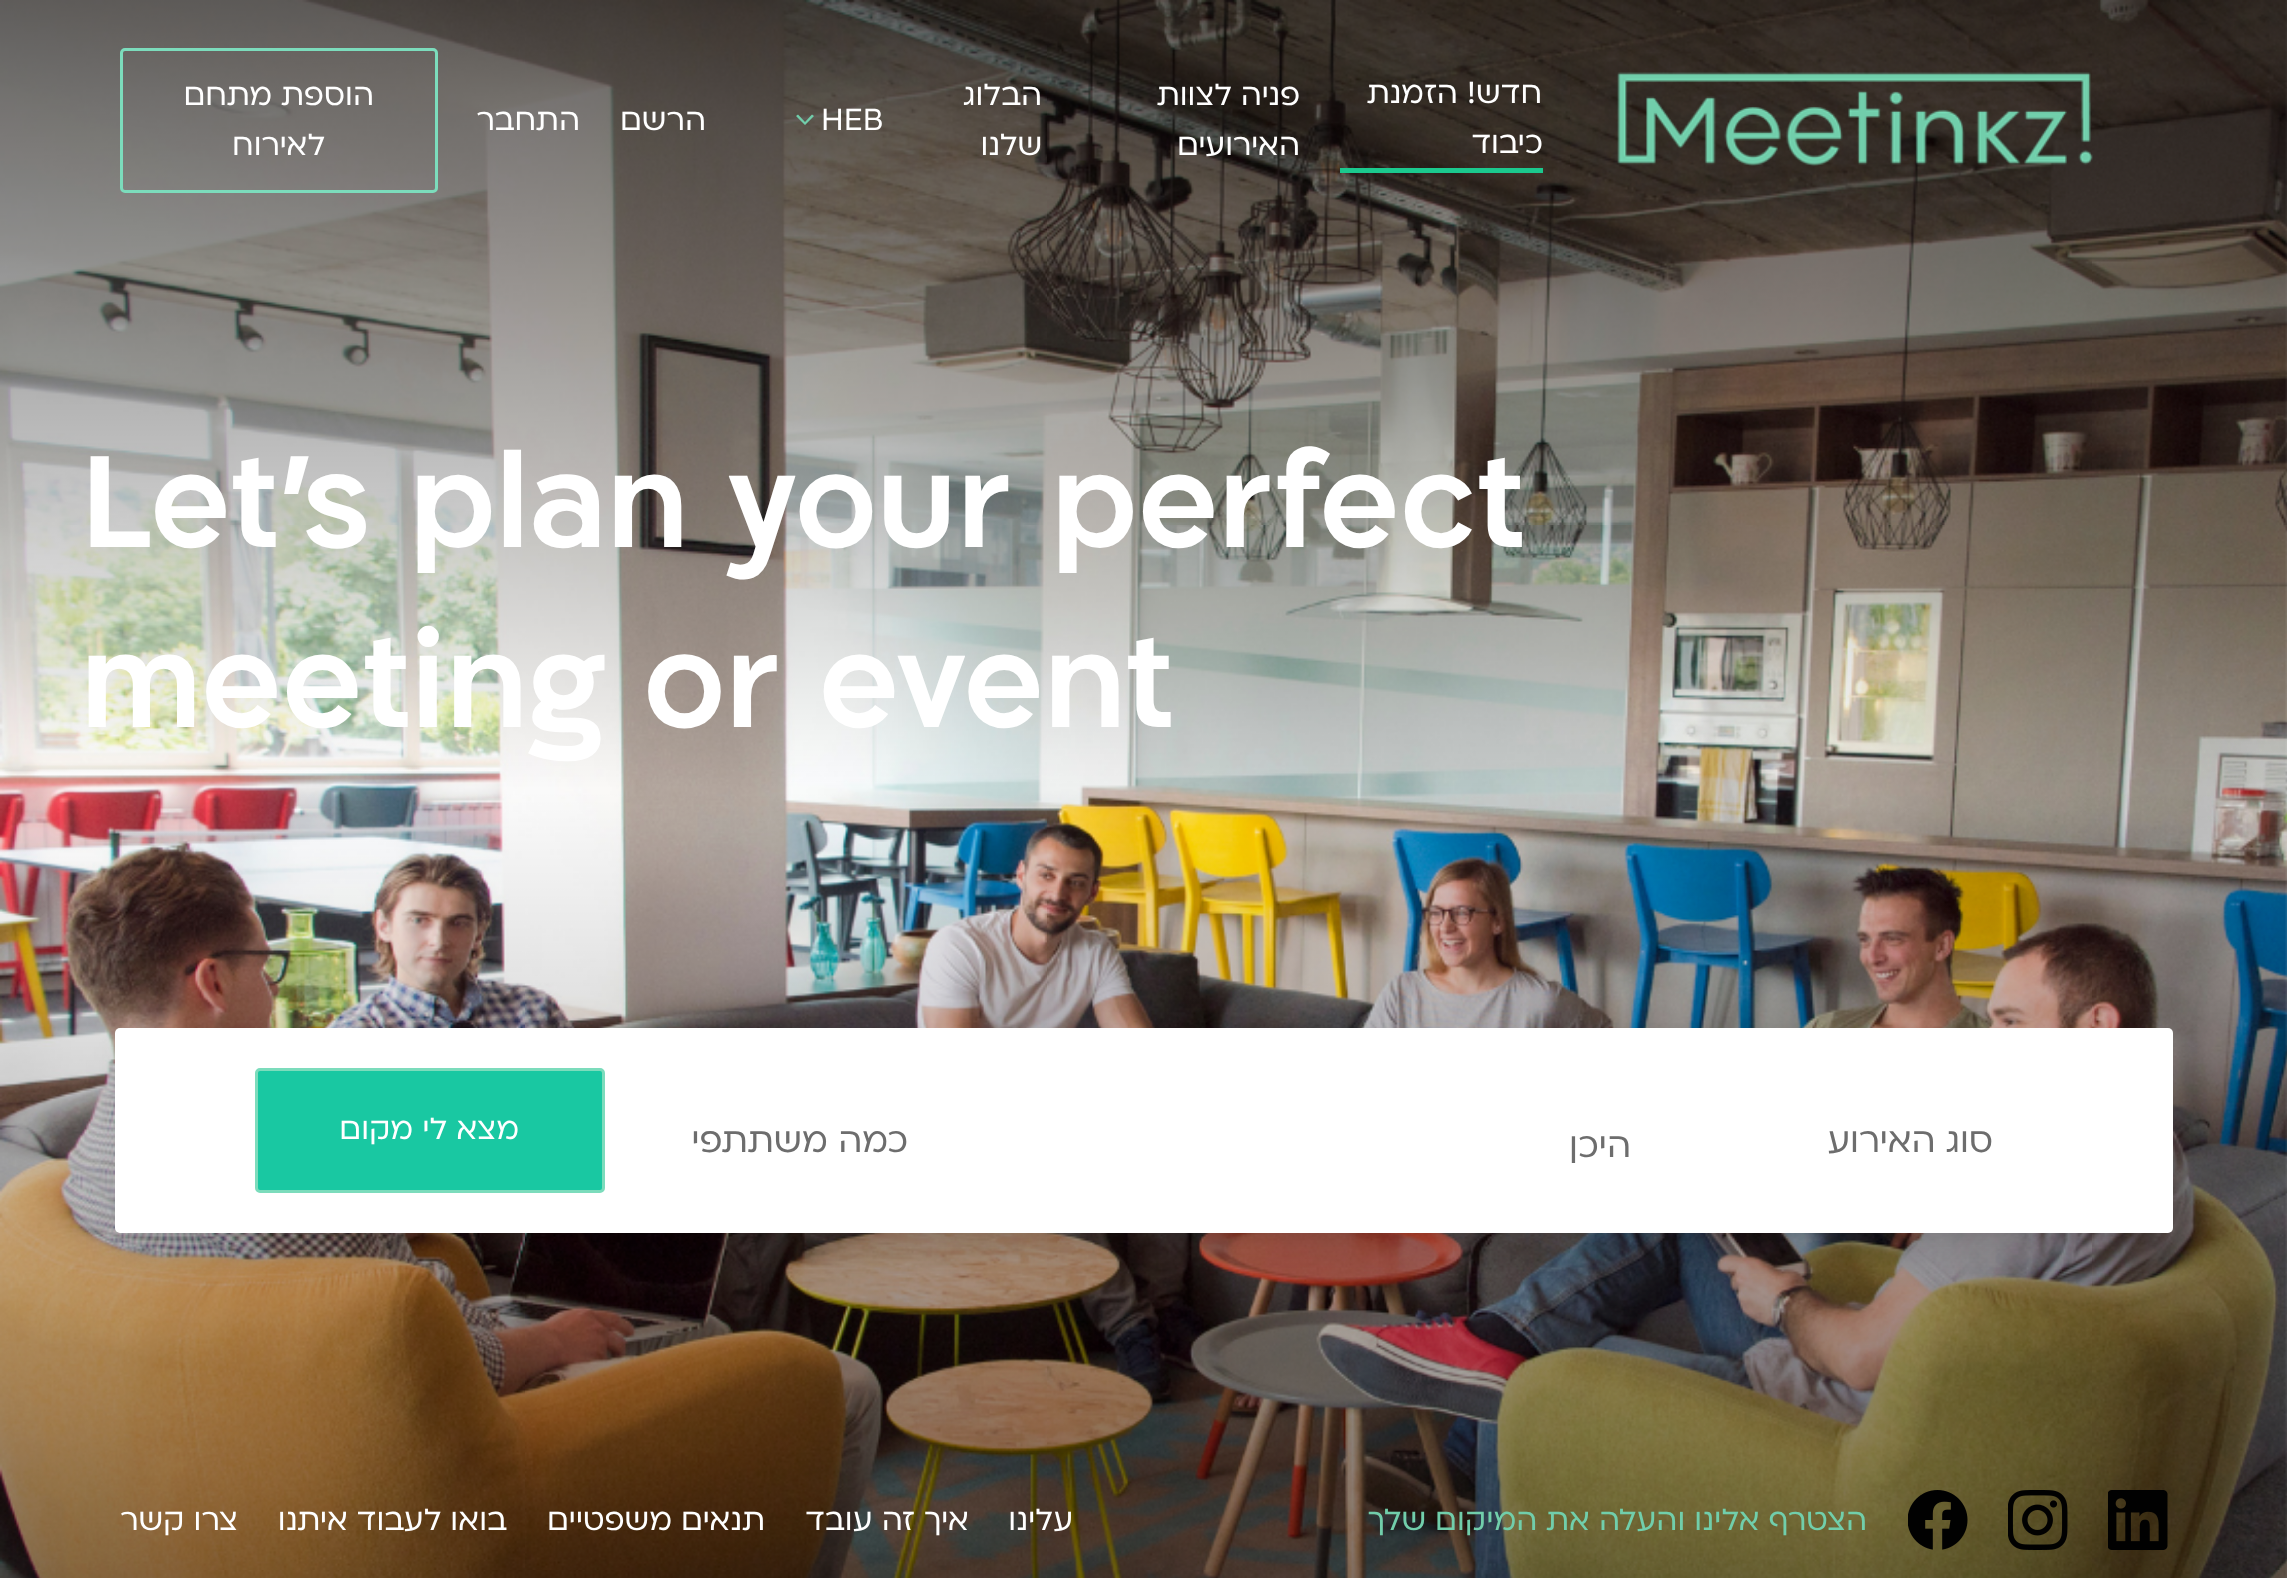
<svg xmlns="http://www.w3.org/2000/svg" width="2287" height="1578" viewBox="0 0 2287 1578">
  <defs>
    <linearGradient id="g1" gradientUnits="userSpaceOnUse" x1="1144" y1="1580" x2="1144" y2="0"><stop offset="0" stop-color="#000000" stop-opacity="0.4"/><stop offset="0.5" stop-color="#000000" stop-opacity="0"/><stop offset="1" stop-color="#000000" stop-opacity="0.6"/></linearGradient>
    <filter id="blur1" x="-50%" y="-200%" width="200%" height="500%"><feGaussianBlur stdDeviation="7.5"/></filter>
    <filter id="blur2" x="-50%" y="-200%" width="200%" height="500%"><feGaussianBlur stdDeviation="19"/></filter>
    <clipPath id="clip1"><rect x="693" y="1113" width="215" height="57"/></clipPath>
  </defs>
  <rect width="100%" height="100%" fill="#ffffff"/>
  <image x="0" y="0" width="2287" height="1578" href="img2.png"/>
  <rect x="0" y="0" width="2287" height="1578" fill="url(#g1)"/>
  <image x="1617" y="72" width="476" height="94" href="img1.png"/>
  <rect x="1340" y="168" width="203" height="5" fill="#1bc98e"/>
  <text x="1542" y="103" font-family="'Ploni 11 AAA'" font-size="35" direction="rtl" fill="#ffffff">חדש! הזמנת</text>
  <text x="1543" y="153" font-family="'Ploni 11 AAA'" font-size="35" direction="rtl" fill="#ffffff">כיבוד</text>
  <text x="1300" y="105" font-family="'Ploni 11 AAA'" font-size="35" direction="rtl" fill="#ffffff">פניה לצוות</text>
  <text x="1300" y="155" font-family="'Ploni 11 AAA'" font-size="35" direction="rtl" fill="#ffffff">האירועים</text>
  <text x="1042" y="105" font-family="'Ploni 11 AAA'" font-size="35" direction="rtl" fill="#ffffff">הבלוג</text>
  <text x="1042" y="155" font-family="'Ploni 11 AAA'" font-size="35" direction="rtl" fill="#ffffff">שלנו</text>
  <text x="821" y="130" font-family="'Ploni 11 AAA'" font-size="35" fill="#ffffff">HEB</text>
  <path d="M805 125L796 116L798 114.5L805 122L812 114.5L814 116Z" fill="#71ceab"/>
  <text x="706" y="130" font-family="'Ploni 11 AAA'" font-size="35" direction="rtl" fill="#ffffff">הרשם</text>
  <text x="580" y="130" font-family="'Ploni 11 AAA'" font-size="35" direction="rtl" fill="#ffffff">התחבר</text>
  <rect x="121.5" y="49.5" width="315" height="142" rx="3.5" fill="none" stroke="#7cdcbc" stroke-width="3"/>
  <text x="374" y="105" font-family="'Ploni 11 AAA'" font-size="35" direction="rtl" fill="#ffffff">הוספת מתחם</text>
  <text x="325" y="155" font-family="'Ploni 11 AAA'" font-size="35" direction="rtl" fill="#ffffff">לאירוח</text>
  <text x="80" y="547" font-family="'Ploni 11 AAA'" font-size="150" font-weight="bold" fill="#ffffff">Let's plan your perfect</text>
  <text x="80" y="727" font-family="'Ploni 11 AAA'" font-size="150" font-weight="bold" fill="#ffffff">meeting or event</text>
  <rect x="125" y="1048" width="2038" height="185" fill="#000000" fill-opacity="0.1" filter="url(#blur1)"/>
  <rect x="123" y="1060" width="2042" height="190" fill="#000000" fill-opacity="0.1" filter="url(#blur2)"/>
  <rect x="115" y="1028" width="2058" height="205" rx="5" fill="#ffffff"/>
  <text x="1993" y="1152" font-family="'Ploni 11 AAA'" font-size="40" direction="rtl" fill="#6d6d6d">סוג האירוע</text>
  <text x="1631" y="1157" font-family="'Ploni 11 AAA'" font-size="40" direction="rtl" fill="#6d6d6d">היכן</text>
  <g clip-path="url(#clip1)">
    <text x="908" y="1152" font-family="'Ploni 11 AAA'" font-size="40" direction="rtl" fill="#6d6d6d">כמה משתתפים</text>
  </g>
  <rect x="256.5" y="1069.5" width="347" height="122" rx="3.5" fill="#19c8a2" stroke="#7cdcbc" stroke-width="3"/>
  <text x="519" y="1139" font-family="'Ploni 11 AAA'" font-size="35" direction="rtl" fill="#ffffff">מצא לי מקום</text>
  <image x="2108" y="1490" width="60" height="60" href="img3.png"/>
  <image x="2008" y="1490" width="60" height="60" href="img4.png"/>
  <image x="1908" y="1490" width="60" height="60" href="img5.png"/>
  <text x="1867" y="1530" font-family="'Ploni 11 AAA'" font-size="35" direction="rtl" fill="#71ceab">הצטרף אלינו והעלה את המיקום שלך</text>
  <text x="1073" y="1530" font-family="'Ploni 11 AAA'" font-size="35" direction="rtl" fill="#ffffff">עלינו</text>
  <text x="969" y="1530" font-family="'Ploni 11 AAA'" font-size="35" direction="rtl" fill="#ffffff">איך זה עובד</text>
  <text x="765" y="1530" font-family="'Ploni 11 AAA'" font-size="35" direction="rtl" fill="#ffffff">תנאים משפטיים</text>
  <text x="507" y="1530" font-family="'Ploni 11 AAA'" font-size="35" direction="rtl" fill="#ffffff">בואו לעבוד איתנו</text>
  <text x="238" y="1530" font-family="'Ploni 11 AAA'" font-size="35" direction="rtl" fill="#ffffff">צרו קשר</text>
</svg>
